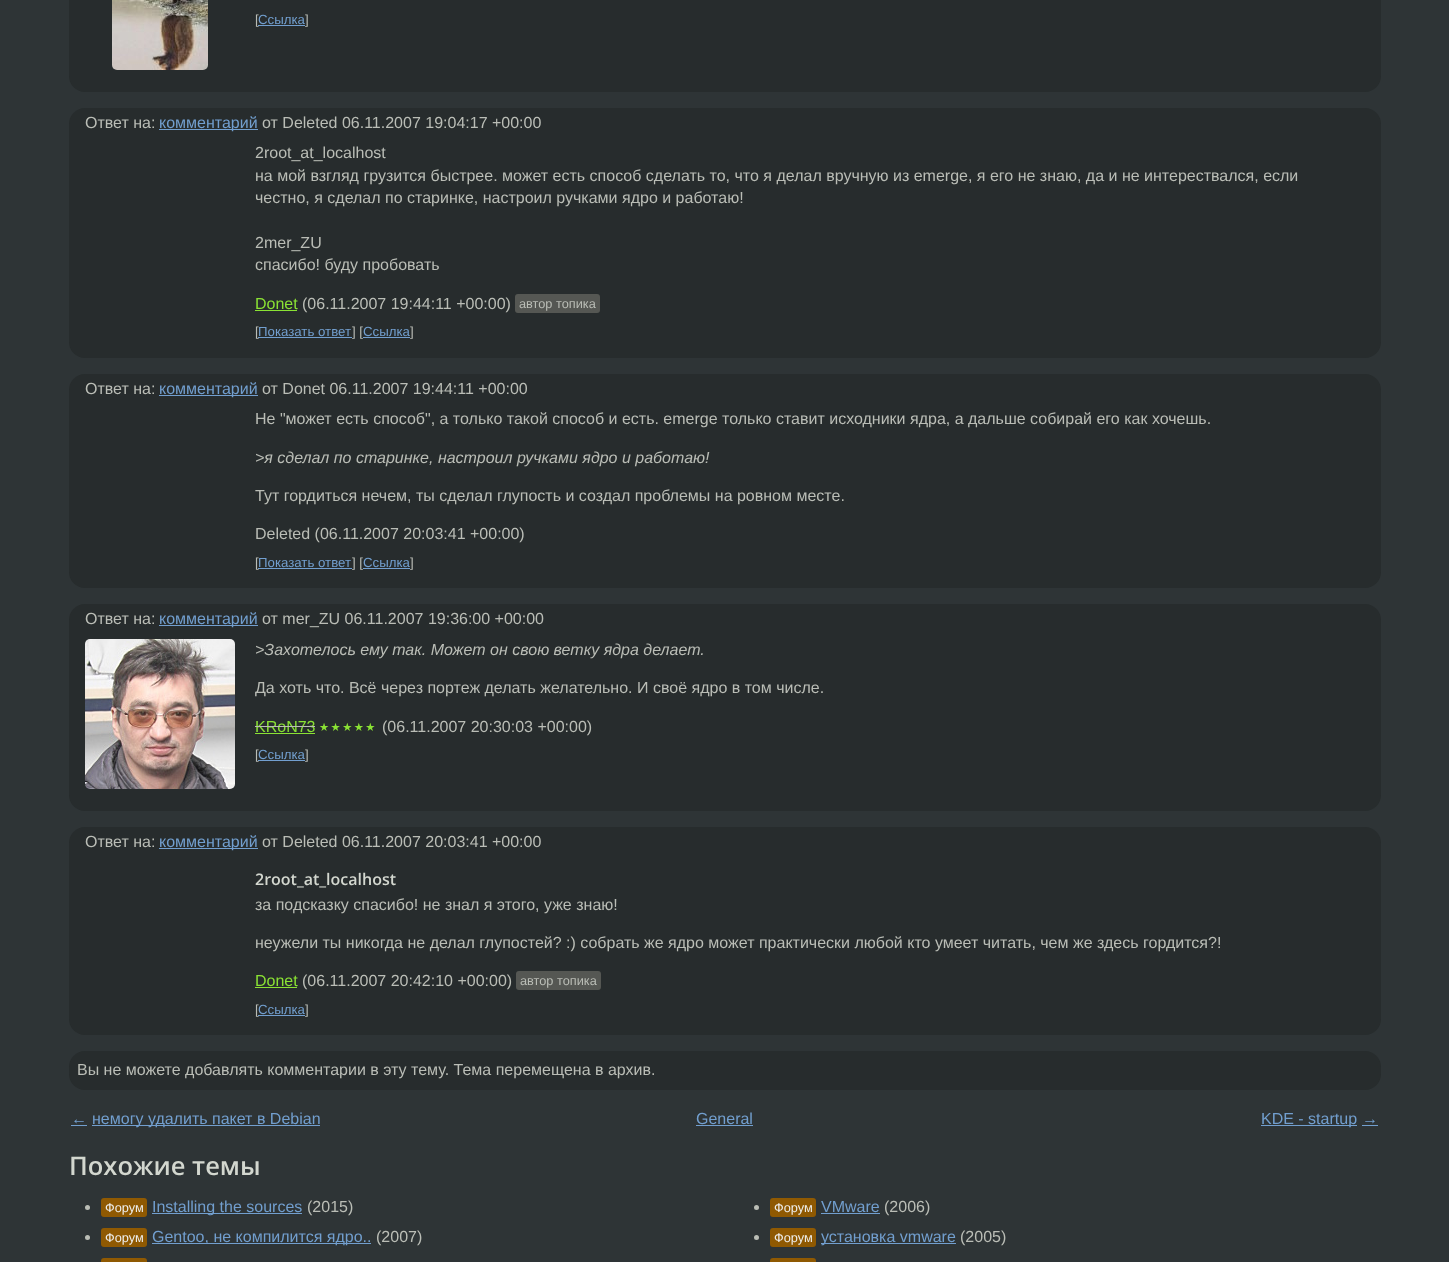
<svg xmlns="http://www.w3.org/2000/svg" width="1449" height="1262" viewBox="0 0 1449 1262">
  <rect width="100%" height="100%" fill="#2e3436"/>
  <rect x="69" y="-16" width="1312" height="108" rx="16" fill="#272c2d"/>
  <image x="112" y="0" width="96" height="70" href="img1.png"/>
  <text x="255" y="24" font-family="Liberation Sans" font-size="13.25" fill="#babdb6">[</text>
  <rect x="258" y="25" width="47" height="1" fill="#729fcf"/>
  <text x="258" y="24" font-family="Liberation Sans" font-size="13.25" fill="#729fcf">Ссылка</text>
  <text x="305" y="24" font-family="Liberation Sans" font-size="13.25" fill="#babdb6">]</text>
  <rect x="69" y="108" width="1312" height="250" rx="16" fill="#272c2d"/>
  <text x="85" y="128" font-family="Liberation Sans" font-size="16" fill="#babdb6">Ответ на:</text>
  <rect x="159" y="129" width="99" height="1" fill="#729fcf"/>
  <text x="159" y="128" font-family="Liberation Sans" font-size="16" fill="#729fcf">комментарий</text>
  <text x="262" y="128" font-family="Liberation Sans" font-size="16" fill="#babdb6">от Deleted 06.11.2007 19:04:17 +00:00</text>
  <text x="255" y="158" font-family="Liberation Sans" font-size="16" fill="#babdb6">2root_at_localhost</text>
  <text x="255" y="181" font-family="Liberation Sans" font-size="16" fill="#babdb6">на мой взгляд грузится быстрее. может есть способ сделать то, что я делал вручную из emerge, я его не знаю, да и не интерествался, если</text>
  <text x="255" y="203" font-family="Liberation Sans" font-size="16" fill="#babdb6">честно, я сделал по старинке, настроил ручками ядро и работаю!</text>
  <text x="255" y="248" font-family="Liberation Sans" font-size="16" fill="#babdb6">2mer_ZU</text>
  <text x="255" y="270" font-family="Liberation Sans" font-size="16" fill="#babdb6">спасибо! буду пробовать</text>
  <text x="255" y="309" font-family="Liberation Sans" font-size="16" fill="#8ae234">Donet</text>
  <rect x="255" y="310" width="42" height="1" fill="#8ae234"/>
  <text x="302" y="309" font-family="Liberation Sans" font-size="16" fill="#babdb6">(06.11.2007 19:44:11 +00:00)</text>
  <rect x="515" y="294" width="85" height="19" rx="3" fill="#555753"/>
  <text x="519" y="308" font-family="Liberation Sans" font-size="12.75" fill="#babdb6">автор топика</text>
  <text x="255" y="336" font-family="Liberation Sans" font-size="13.25" fill="#babdb6">[</text>
  <rect x="258" y="337" width="94" height="1" fill="#729fcf"/>
  <text x="258" y="336" font-family="Liberation Sans" font-size="13.25" fill="#729fcf">Показать ответ</text>
  <text x="352" y="336" font-family="Liberation Sans" font-size="13.25" fill="#babdb6">] [</text>
  <rect x="363" y="337" width="47" height="1" fill="#729fcf"/>
  <text x="363" y="336" font-family="Liberation Sans" font-size="13.25" fill="#729fcf">Ссылка</text>
  <text x="410" y="336" font-family="Liberation Sans" font-size="13.25" fill="#babdb6">]</text>
  <rect x="69" y="374" width="1312" height="214" rx="16" fill="#272c2d"/>
  <text x="85" y="394" font-family="Liberation Sans" font-size="16" fill="#babdb6">Ответ на:</text>
  <rect x="159" y="395" width="99" height="1" fill="#729fcf"/>
  <text x="159" y="394" font-family="Liberation Sans" font-size="16" fill="#729fcf">комментарий</text>
  <text x="262" y="394" font-family="Liberation Sans" font-size="16" fill="#babdb6">от Donet 06.11.2007 19:44:11 +00:00</text>
  <text x="255" y="424" font-family="Liberation Sans" font-size="16" fill="#babdb6">Не "может есть способ", а только такой способ и есть. emerge только ставит исходники ядра, а дальше собирай его как хочешь.</text>
  <text x="255" y="463" font-family="Liberation Sans" font-size="16" font-style="italic" fill="#babdb6">&gt;я сделал по старинке, настроил ручками ядро и работаю!</text>
  <text x="255" y="501" font-family="Liberation Sans" font-size="16" fill="#babdb6">Тут гордиться нечем, ты сделал глупость и создал проблемы на ровном месте.</text>
  <text x="255" y="539" font-family="Liberation Sans" font-size="16" fill="#babdb6">Deleted (06.11.2007 20:03:41 +00:00)</text>
  <text x="255" y="567" font-family="Liberation Sans" font-size="13.25" fill="#babdb6">[</text>
  <rect x="258" y="568" width="94" height="1" fill="#729fcf"/>
  <text x="258" y="567" font-family="Liberation Sans" font-size="13.25" fill="#729fcf">Показать ответ</text>
  <text x="352" y="567" font-family="Liberation Sans" font-size="13.25" fill="#babdb6">] [</text>
  <rect x="363" y="568" width="47" height="1" fill="#729fcf"/>
  <text x="363" y="567" font-family="Liberation Sans" font-size="13.25" fill="#729fcf">Ссылка</text>
  <text x="410" y="567" font-family="Liberation Sans" font-size="13.25" fill="#babdb6">]</text>
  <rect x="69" y="604" width="1312" height="207" rx="16" fill="#272c2d"/>
  <text x="85" y="624" font-family="Liberation Sans" font-size="16" fill="#babdb6">Ответ на:</text>
  <rect x="159" y="625" width="99" height="1" fill="#729fcf"/>
  <text x="159" y="624" font-family="Liberation Sans" font-size="16" fill="#729fcf">комментарий</text>
  <text x="262" y="624" font-family="Liberation Sans" font-size="16" fill="#babdb6">от mer_ZU 06.11.2007 19:36:00 +00:00</text>
  <image x="85" y="639" width="150" height="150" href="img2.png"/>
  <text x="255" y="655" font-family="Liberation Sans" font-size="16" font-style="italic" fill="#babdb6">&gt;Захотелось ему так. Может он свою ветку ядра делает.</text>
  <text x="255" y="693" font-family="Liberation Sans" font-size="16" fill="#babdb6">Да хоть что. Всё через портеж делать желательно. И своё ядро в том числе.</text>
  <text x="255" y="732" font-family="Liberation Sans" font-size="16" fill="#8ae234">KRoN73</text>
  <rect x="255" y="733" width="60" height="1" fill="#8ae234"/>
  <rect x="255" y="726" width="60" height="1" fill="#babdb6"/>
  <text x="319" y="731" font-family="DejaVu Sans" font-size="11.25" letter-spacing="1.5" fill="#8ae234">★★★★★</text>
  <text x="382" y="732" font-family="Liberation Sans" font-size="16" fill="#babdb6">(06.11.2007 20:30:03 +00:00)</text>
  <text x="255" y="759" font-family="Liberation Sans" font-size="13.25" fill="#babdb6">[</text>
  <rect x="258" y="760" width="47" height="1" fill="#729fcf"/>
  <text x="258" y="759" font-family="Liberation Sans" font-size="13.25" fill="#729fcf">Ссылка</text>
  <text x="305" y="759" font-family="Liberation Sans" font-size="13.25" fill="#babdb6">]</text>
  <rect x="69" y="827" width="1312" height="208" rx="16" fill="#272c2d"/>
  <text x="85" y="847" font-family="Liberation Sans" font-size="16" fill="#babdb6">Ответ на:</text>
  <rect x="159" y="848" width="99" height="1" fill="#729fcf"/>
  <text x="159" y="847" font-family="Liberation Sans" font-size="16" fill="#729fcf">комментарий</text>
  <text x="262" y="847" font-family="Liberation Sans" font-size="16" fill="#babdb6">от Deleted 06.11.2007 20:03:41 +00:00</text>
  <text x="255" y="885" font-family="Open Sans" font-size="16" font-weight="600" fill="#d3d7cf">2root_at_localhost</text>
  <text x="255" y="910" font-family="Liberation Sans" font-size="16" fill="#babdb6">за подсказку спасибо! не знал я этого, уже знаю!</text>
  <text x="255" y="948" font-family="Liberation Sans" font-size="16" fill="#babdb6">неужели ты никогда не делал глупостей? :) собрать же ядро может практически любой кто умеет читать, чем же здесь гордится?!</text>
  <text x="255" y="986" font-family="Liberation Sans" font-size="16" fill="#8ae234">Donet</text>
  <rect x="255" y="987" width="42" height="1" fill="#8ae234"/>
  <text x="302" y="986" font-family="Liberation Sans" font-size="16" fill="#babdb6">(06.11.2007 20:42:10 +00:00)</text>
  <rect x="516" y="971" width="85" height="19" rx="3" fill="#555753"/>
  <text x="520" y="985" font-family="Liberation Sans" font-size="12.75" fill="#babdb6">автор топика</text>
  <text x="255" y="1014" font-family="Liberation Sans" font-size="13.25" fill="#babdb6">[</text>
  <rect x="258" y="1015" width="47" height="1" fill="#729fcf"/>
  <text x="258" y="1014" font-family="Liberation Sans" font-size="13.25" fill="#729fcf">Ссылка</text>
  <text x="305" y="1014" font-family="Liberation Sans" font-size="13.25" fill="#babdb6">]</text>
  <rect x="69" y="1051" width="1312" height="39" rx="16" fill="#272c2d"/>
  <text x="77" y="1075" font-family="Liberation Sans" font-size="16" fill="#babdb6">Вы не можете добавлять комментарии в эту тему. Тема перемещена в архив.</text>
  <text x="71" y="1124" font-family="Liberation Sans" font-size="16" fill="#729fcf">←</text>
  <rect x="71" y="1125" width="16" height="1" fill="#729fcf"/>
  <rect x="92" y="1125" width="228" height="1" fill="#729fcf"/>
  <text x="92" y="1124" font-family="Liberation Sans" font-size="16" fill="#729fcf">немогу удалить пакет в Debian</text>
  <text x="696" y="1124" font-family="Liberation Sans" font-size="16" fill="#729fcf">General</text>
  <rect x="696" y="1125" width="57" height="1" fill="#729fcf"/>
  <rect x="1261" y="1125" width="96" height="1" fill="#729fcf"/>
  <text x="1261" y="1124" font-family="Liberation Sans" font-size="16" fill="#729fcf">KDE - startup</text>
  <text x="1362" y="1124" font-family="Liberation Sans" font-size="16" fill="#729fcf">→</text>
  <rect x="1362" y="1125" width="16" height="1" fill="#729fcf"/>
  <text x="69" y="1175" font-family="Open Sans" font-size="25.5" font-weight="600" fill="#d3d7cf">Похожие темы</text>
  <circle cx="87.5" cy="1207.5" r="2.5" fill="#babdb6"/>
  <rect x="101" y="1198" width="46" height="19" rx="3" fill="#8f5902"/>
  <text x="105" y="1212" font-family="Liberation Sans" font-size="12.75" fill="#eeeeec">Форум</text>
  <rect x="152" y="1213" width="150" height="1" fill="#729fcf"/>
  <text x="152" y="1212" font-family="Liberation Sans" font-size="16" fill="#729fcf">Installing the sources</text>
  <text x="307" y="1212" font-family="Liberation Sans" font-size="16" fill="#babdb6">(2015)</text>
  <circle cx="87.5" cy="1237.5" r="2.5" fill="#babdb6"/>
  <rect x="101" y="1228" width="46" height="19" rx="3" fill="#8f5902"/>
  <text x="105" y="1242" font-family="Liberation Sans" font-size="12.75" fill="#eeeeec">Форум</text>
  <rect x="152" y="1243" width="219" height="1" fill="#729fcf"/>
  <text x="152" y="1242" font-family="Liberation Sans" font-size="16" fill="#729fcf">Gentoo, не компилится ядро..</text>
  <text x="376" y="1242" font-family="Liberation Sans" font-size="16" fill="#babdb6">(2007)</text>
  <rect x="101" y="1258" width="46" height="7" rx="3" fill="#8f5902"/>
  <circle cx="756.5" cy="1207.5" r="2.5" fill="#babdb6"/>
  <rect x="770" y="1198" width="46" height="19" rx="3" fill="#8f5902"/>
  <text x="774" y="1212" font-family="Liberation Sans" font-size="12.75" fill="#eeeeec">Форум</text>
  <text x="821" y="1212" font-family="Liberation Sans" font-size="16" fill="#729fcf">VMware</text>
  <rect x="821" y="1213" width="59" height="1" fill="#729fcf"/>
  <text x="884" y="1212" font-family="Liberation Sans" font-size="16" fill="#babdb6">(2006)</text>
  <circle cx="756.5" cy="1237.5" r="2.5" fill="#babdb6"/>
  <rect x="770" y="1228" width="46" height="19" rx="3" fill="#8f5902"/>
  <text x="774" y="1242" font-family="Liberation Sans" font-size="12.75" fill="#eeeeec">Форум</text>
  <rect x="821" y="1243" width="135" height="1" fill="#729fcf"/>
  <text x="821" y="1242" font-family="Liberation Sans" font-size="16" fill="#729fcf">установка vmware</text>
  <text x="960" y="1242" font-family="Liberation Sans" font-size="16" fill="#babdb6">(2005)</text>
  <rect x="770" y="1258" width="46" height="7" rx="3" fill="#8f5902"/>
</svg>
